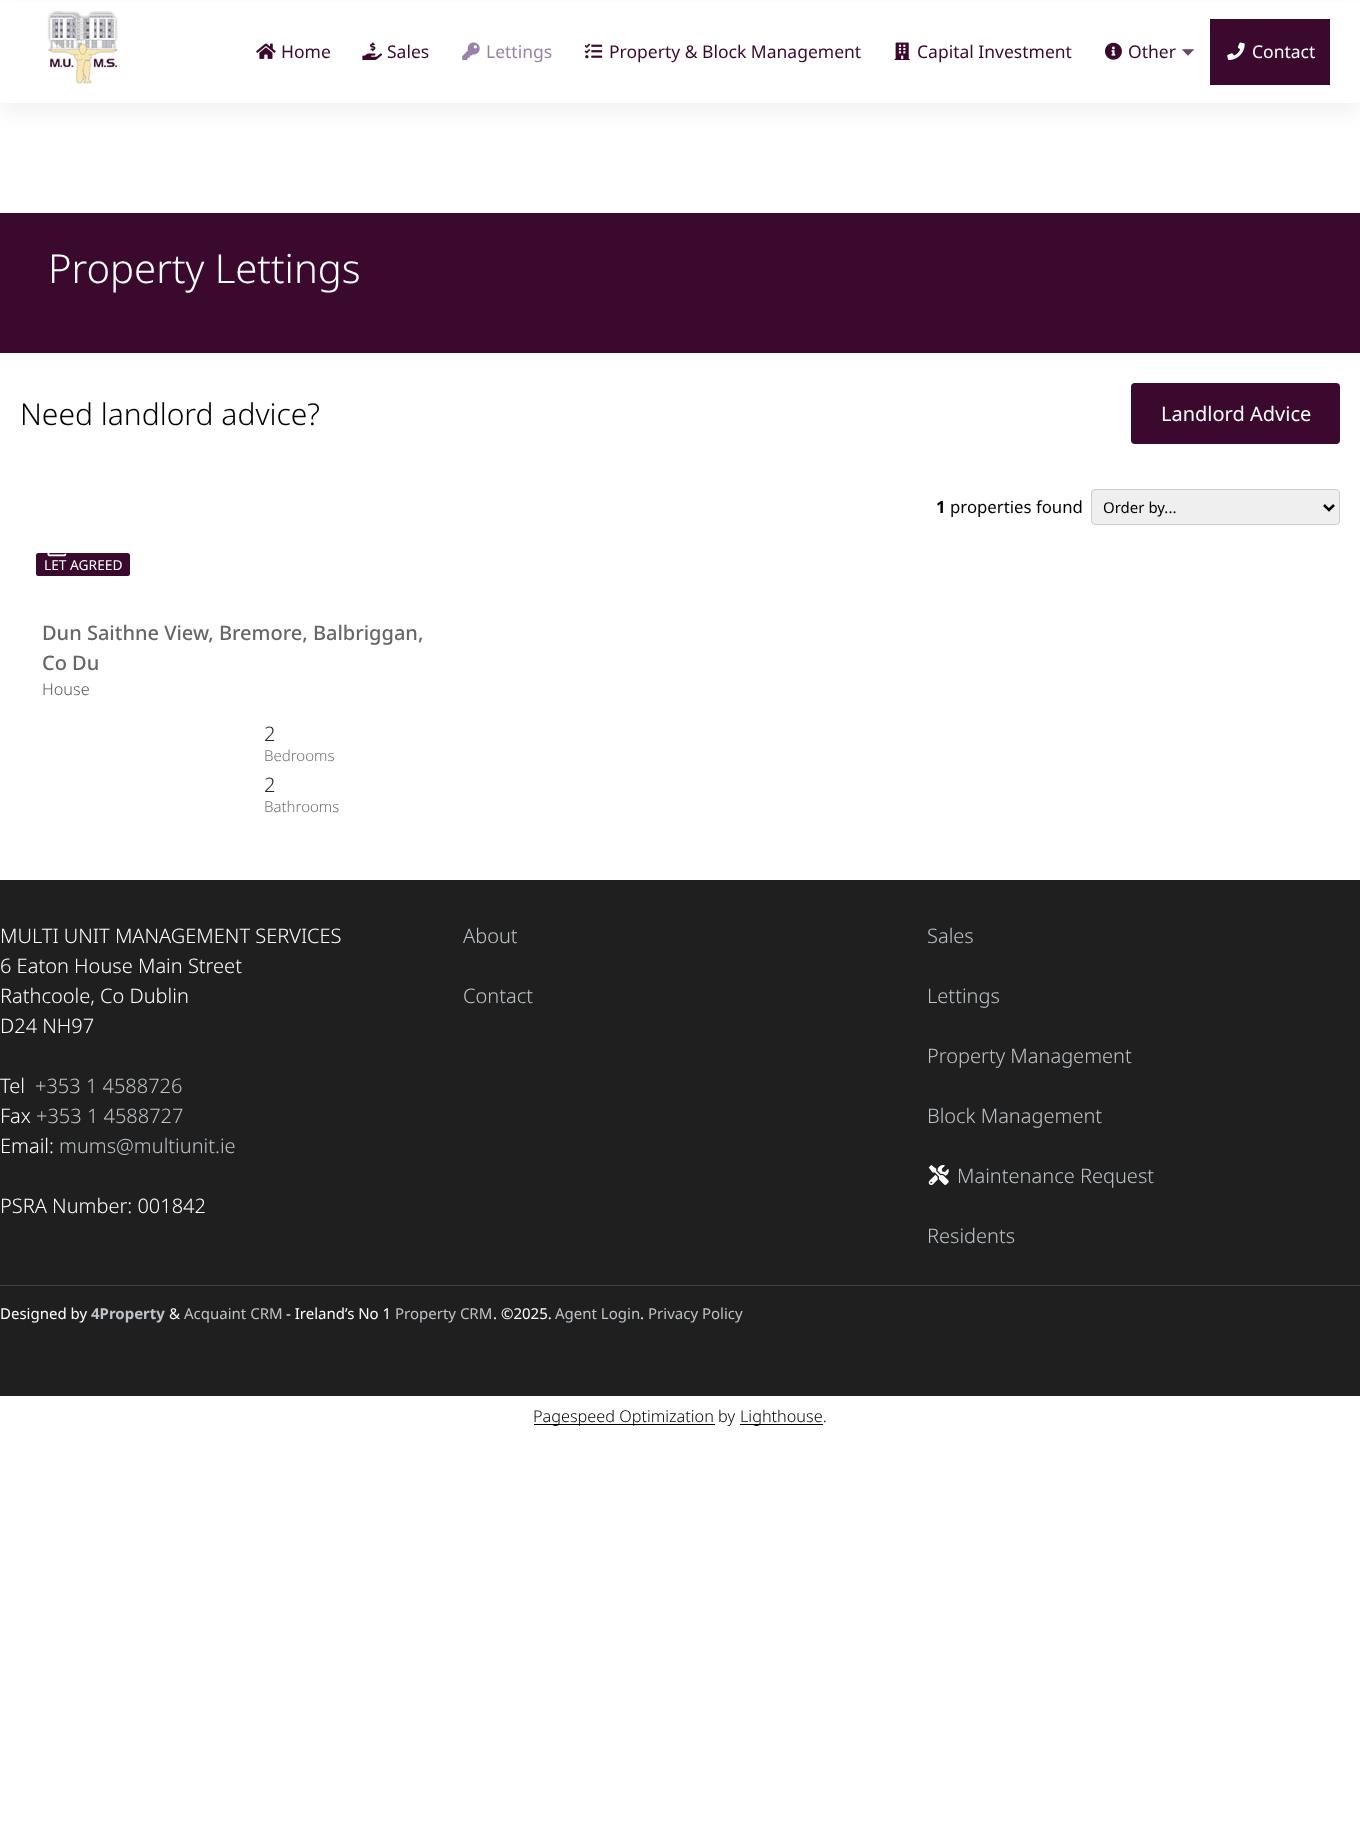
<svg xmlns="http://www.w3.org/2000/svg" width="1360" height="1826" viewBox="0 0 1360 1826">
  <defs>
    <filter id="blur1" x="-50%" y="-200%" width="200%" height="500%"><feGaussianBlur stdDeviation="10"/></filter>
  </defs>
  <rect width="100%" height="100%" fill="#ffffff"/>
  <rect x="0" y="10" width="1360" height="103" fill="#000000" fill-opacity="0.05" filter="url(#blur1)"/>
  <rect x="0" y="2" width="1360" height="101" fill="#ffffff"/>
  <image x="47" y="10" width="71" height="74" href="img1.png"/>
  <image x="256" y="43" width="20" height="16" href="img2.png"/>
  <text x="281" y="58" font-family="Noto Sans" font-size="17.5" fill="#3c092e">Home</text>
  <image x="362" y="42" width="20" height="18" href="img3.png"/>
  <text x="387" y="58" font-family="Noto Sans" font-size="17.5" fill="#3c092e">Sales</text>
  <image x="462" y="42" width="18" height="18" href="img4.png"/>
  <text x="486" y="58" font-family="Noto Sans" font-size="17.5" fill="#9982a8">Lettings</text>
  <image x="584" y="43" width="19" height="16" href="img5.png"/>
  <text x="609" y="58" font-family="Noto Sans" font-size="17.5" fill="#3c092e">Property &amp; Block Management</text>
  <image x="894" y="42" width="16" height="18" href="img6.png"/>
  <text x="917" y="58" font-family="Noto Sans" font-size="17.5" fill="#3c092e">Capital Investment</text>
  <image x="1105" y="42" width="17" height="18" href="img7.png"/>
  <text x="1128" y="58" font-family="Noto Sans" font-size="17.5" fill="#3c092e">Other</text>
  <text x="1181" y="58" font-family="FreeSans" font-size="17.5" fill="#6d4762">⏷</text>
  <rect x="1210" y="19" width="120" height="66" fill="#3c092e"/>
  <image x="1227" y="42" width="18" height="18" href="img8.png"/>
  <text x="1252" y="58" font-family="Noto Sans" font-size="17.5" fill="#ffffff">Contact</text>
  <rect x="0" y="213" width="1360" height="140" fill="#3c092e"/>
  <text x="48" y="283" font-family="Noto Sans" font-size="40" font-weight="300" fill="#ffffff">Property Lettings</text>
  <text x="20" y="425" font-family="Noto Sans" font-size="30" font-weight="300" fill="#000000">Need landlord advice?</text>
  <rect x="1131" y="383" width="209" height="61" rx="4" fill="#3c092e"/>
  <text x="1161" y="421" font-family="Noto Sans" font-size="20" fill="#ffffff">Landlord Advice</text>
  <text x="936" y="513" font-family="Noto Sans" font-size="16.75" font-weight="bold" fill="#000000">1</text>
  <text x="950" y="513" font-family="Noto Sans" font-size="16.75" fill="#000000">properties found</text>
  <rect x="1091.5" y="489.5" width="248" height="35" rx="3.5" fill="#efefef" stroke="#cccccc"/>
  <path d="M1324 505L1329 510L1334 505" fill="none" stroke="#000000" stroke-width="2.5"/>
  <text x="1103" y="513" font-family="Noto Sans" font-size="15" fill="#000000">Order by...</text>
  <rect x="36" y="553" width="94" height="23" rx="2.5" fill="#3c092e"/>
  <image x="47" y="553" width="20" height="4" href="img9.png"/>
  <text x="44" y="570" font-family="Noto Sans" font-size="13.75" fill="#ffffff">LET AGREED</text>
  <text x="42" y="640" font-family="Noto Sans" font-size="20" font-weight="500" fill="#666666">Dun Saithne View, Bremore, Balbriggan,</text>
  <text x="42" y="670" font-family="Noto Sans" font-size="20" font-weight="500" fill="#666666">Co Du</text>
  <text x="42" y="695" font-family="Noto Sans" font-size="16.25" font-weight="300" fill="#595959">House</text>
  <text x="264" y="741" font-family="Noto Sans" font-size="20" font-weight="300" fill="#262626">2</text>
  <text x="264" y="761" font-family="Noto Sans" font-size="15" font-weight="300" fill="#727272">Bedrooms</text>
  <text x="264" y="792" font-family="Noto Sans" font-size="20" font-weight="300" fill="#262626">2</text>
  <text x="264" y="812" font-family="Noto Sans" font-size="15" font-weight="300" fill="#727272">Bathrooms</text>
  <rect x="0" y="880" width="1360" height="516" fill="#1f1f1f"/>
  <text x="0" y="943" font-family="Noto Sans" font-size="20" font-weight="300" fill="#ffffff">MULTI UNIT MANAGEMENT SERVICES</text>
  <text x="0" y="973" font-family="Noto Sans" font-size="20" font-weight="300" fill="#ffffff">6 Eaton House Main Street</text>
  <text x="0" y="1003" font-family="Noto Sans" font-size="20" font-weight="300" fill="#ffffff">Rathcoole, Co Dublin</text>
  <text x="0" y="1033" font-family="Noto Sans" font-size="20" font-weight="300" fill="#ffffff">D24 NH97</text>
  <text x="0" y="1093" font-family="Noto Sans" font-size="20" font-weight="300" fill="#ffffff">Tel</text>
  <text x="35" y="1093" font-family="Noto Sans" font-size="20" font-weight="300" fill="#bdc3c7">+353 1 4588726</text>
  <text x="0" y="1123" font-family="Noto Sans" font-size="20" font-weight="300" fill="#ffffff">Fax</text>
  <text x="36" y="1123" font-family="Noto Sans" font-size="20" font-weight="300" fill="#bdc3c7">+353 1 4588727</text>
  <text x="0" y="1153" font-family="Noto Sans" font-size="20" font-weight="300" fill="#ffffff">Email:</text>
  <text x="59" y="1153" font-family="Noto Sans" font-size="20" font-weight="300" fill="#bdc3c7">mums@multiunit.ie</text>
  <text x="0" y="1213" font-family="Noto Sans" font-size="20" font-weight="300" fill="#ffffff">PSRA Number: 001842</text>
  <text x="463" y="943" font-family="Noto Sans" font-size="20" font-weight="300" fill="#bdc3c7">About</text>
  <text x="463" y="1003" font-family="Noto Sans" font-size="20" font-weight="300" fill="#bdc3c7">Contact</text>
  <text x="927" y="943" font-family="Noto Sans" font-size="20" font-weight="300" fill="#bdc3c7">Sales</text>
  <text x="927" y="1003" font-family="Noto Sans" font-size="20" font-weight="300" fill="#bdc3c7">Lettings</text>
  <text x="927" y="1063" font-family="Noto Sans" font-size="20" font-weight="300" fill="#bdc3c7">Property Management</text>
  <text x="927" y="1123" font-family="Noto Sans" font-size="20" font-weight="300" fill="#bdc3c7">Block Management</text>
  <image x="928" y="1165" width="21" height="20" href="img10.png"/>
  <text x="957" y="1183" font-family="Noto Sans" font-size="20" font-weight="300" fill="#bdc3c7">Maintenance Request</text>
  <text x="927" y="1243" font-family="Noto Sans" font-size="20" font-weight="300" fill="#bdc3c7">Residents</text>
  <rect x="0" y="1285" width="1360" height="1" fill="#414141"/>
  <text x="0" y="1319" font-family="Noto Sans" font-size="15" fill="#ffffff">Designed by</text>
  <text x="91" y="1319" font-family="Noto Sans" font-size="15" font-weight="bold" fill="#bdc3c7">4Property</text>
  <text x="169" y="1319" font-family="Noto Sans" font-size="15" fill="#ffffff">&amp;</text>
  <text x="184" y="1319" font-family="Noto Sans" font-size="15" fill="#bdc3c7">Acquaint CRM</text>
  <text x="286" y="1319" font-family="Noto Sans" font-size="15" fill="#ffffff">- Ireland’s No 1</text>
  <text x="395" y="1319" font-family="Noto Sans" font-size="15" fill="#bdc3c7">Property CRM</text>
  <text x="493" y="1319" font-family="Noto Sans" font-size="15" fill="#ffffff">. ©2025.</text>
  <text x="555" y="1319" font-family="Noto Sans" font-size="15" fill="#bdc3c7">Agent Login</text>
  <text x="640" y="1319" font-family="Noto Sans" font-size="15" fill="#ffffff">.</text>
  <text x="648" y="1319" font-family="Noto Sans" font-size="15" fill="#bdc3c7">Privacy Policy</text>
  <rect x="534" y="1424" width="181" height="1" fill="#000000"/>
  <text x="533" y="1422" font-family="Noto Sans" font-size="16.25" font-weight="300" fill="#000000">Pagespeed Optimization by</text>
  <rect x="740" y="1424" width="83" height="1" fill="#000000"/>
  <text x="740" y="1422" font-family="Noto Sans" font-size="16.25" font-weight="300" fill="#000000">Lighthouse.</text>
</svg>
